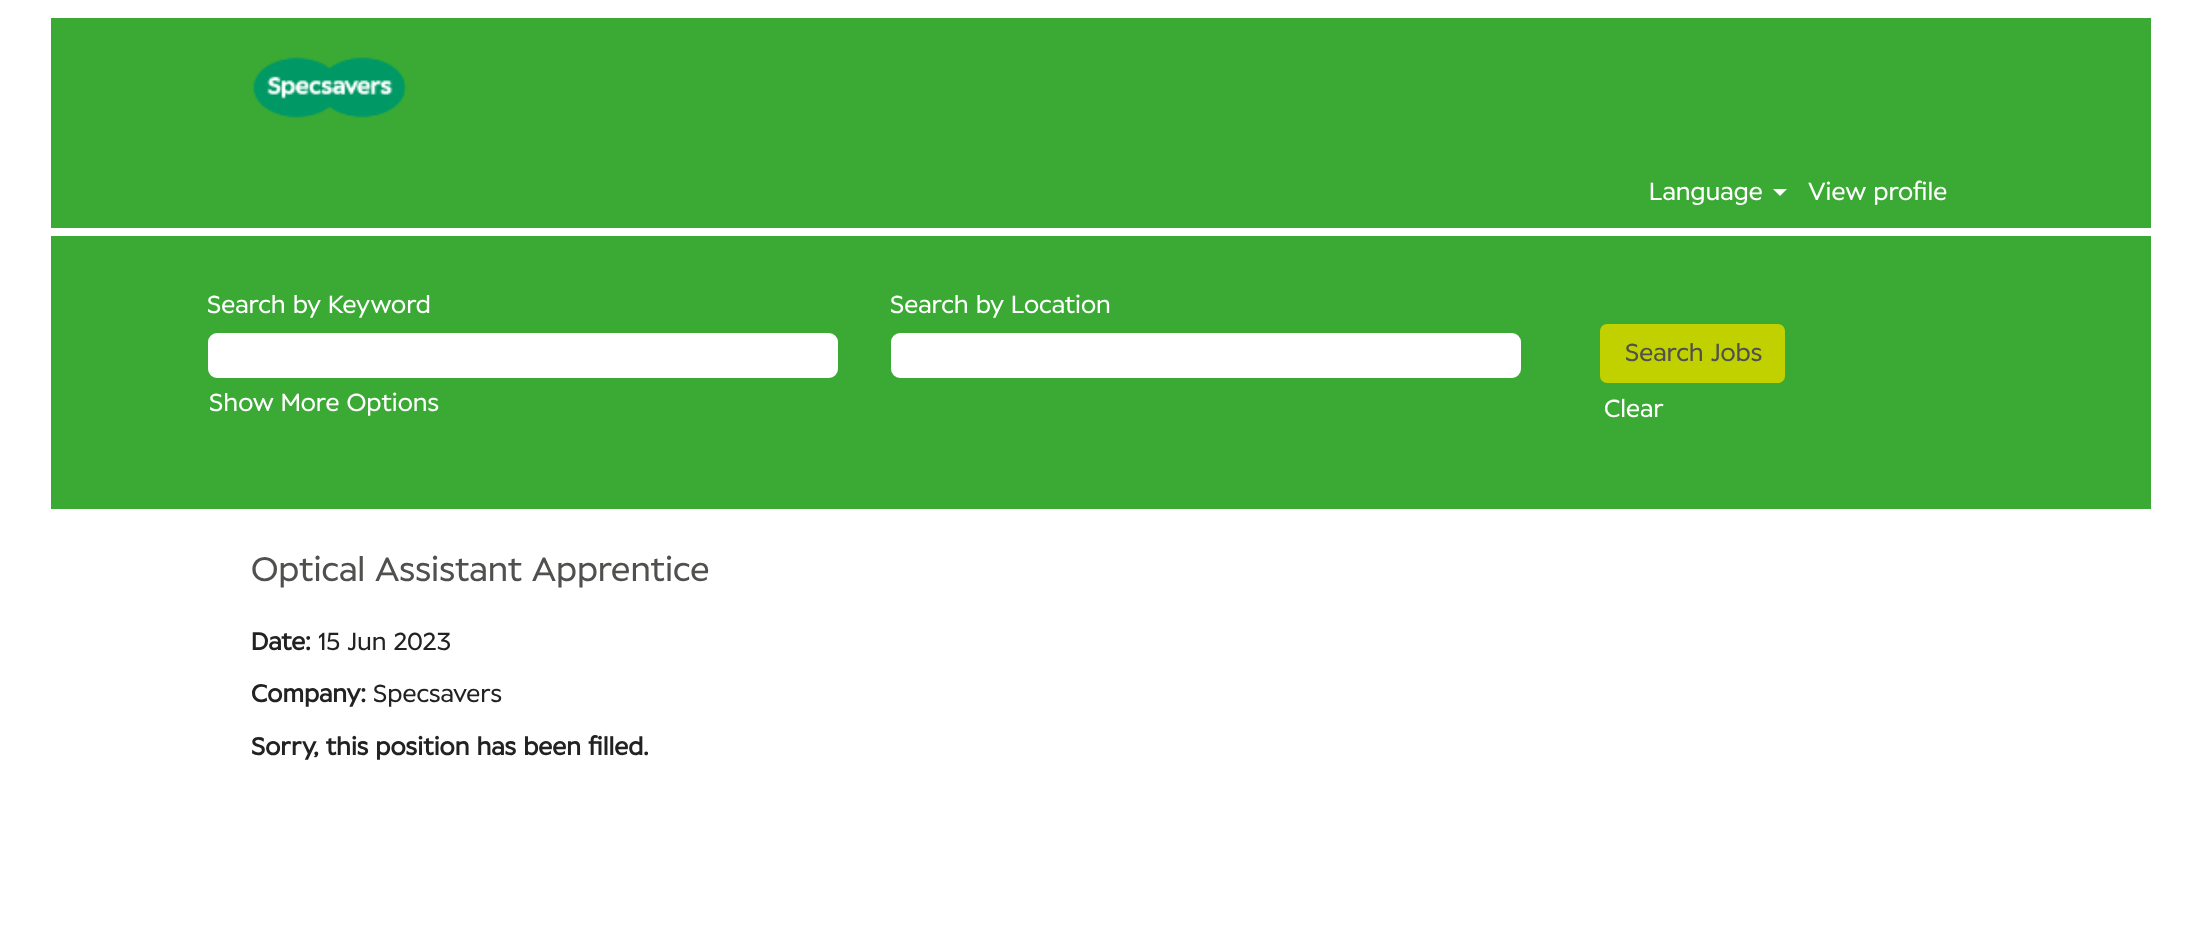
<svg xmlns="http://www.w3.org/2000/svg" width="2199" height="925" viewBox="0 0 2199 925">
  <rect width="100%" height="100%" fill="#ffffff"/>
  <rect x="51" y="18" width="2100" height="210" fill="#3baa35"/>
  <image x="253" y="57" width="154" height="61" href="img1.png"/>
  <text x="1649" y="200" font-family="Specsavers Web" font-size="24.5" fill="#ffffff">Language</text>
  <path d="M1773 189H1787L1780 196Z" fill="#ffffff"/>
  <text x="1808" y="200" font-family="Specsavers Web" font-size="24.5" fill="#ffffff">View profile</text>
  <rect x="51" y="236" width="2100" height="273" fill="#3baa35"/>
  <text x="207" y="313" font-family="Specsavers Web" font-size="24.5" fill="#ffffff">Search by Keyword</text>
  <rect x="210" y="335" width="626" height="41" rx="7" fill="#ffffff" stroke="#ffffff" stroke-width="4"/>
  <text x="890" y="313" font-family="Specsavers Web" font-size="24.5" fill="#ffffff">Search by Location</text>
  <rect x="893" y="335" width="626" height="41" rx="7" fill="#ffffff" stroke="#ffffff" stroke-width="4"/>
  <text x="209" y="411" font-family="Specsavers Web" font-size="24.5" fill="#ffffff">Show More Options</text>
  <rect x="1601" y="325" width="183" height="57" rx="6" fill="#c1d100" stroke="#c1d100" stroke-width="2"/>
  <text x="1625" y="361" font-family="Specsavers Web" font-size="24.5" fill="#50504e">Search Jobs</text>
  <text x="1604" y="417" font-family="Specsavers Web" font-size="24.5" fill="#ffffff">Clear</text>
  <text x="251" y="581" font-family="Specsavers Web" font-size="33.75" fill="#50504e">Optical Assistant Apprentice</text>
  <text x="251" y="650" font-family="Specsavers Web" font-size="24.5" font-weight="bold" fill="#222222">Date:</text>
  <text x="318" y="650" font-family="Specsavers Web" font-size="24.5" fill="#222222">15 Jun 2023</text>
  <text x="251" y="702" font-family="Specsavers Web" font-size="24.5" font-weight="bold" fill="#222222">Company:</text>
  <text x="373" y="702" font-family="Specsavers Web" font-size="24.5" fill="#222222">Specsavers</text>
  <text x="251" y="755" font-family="Specsavers Web" font-size="24.5" font-weight="bold" fill="#222222">Sorry, this position has been filled.</text>
</svg>
